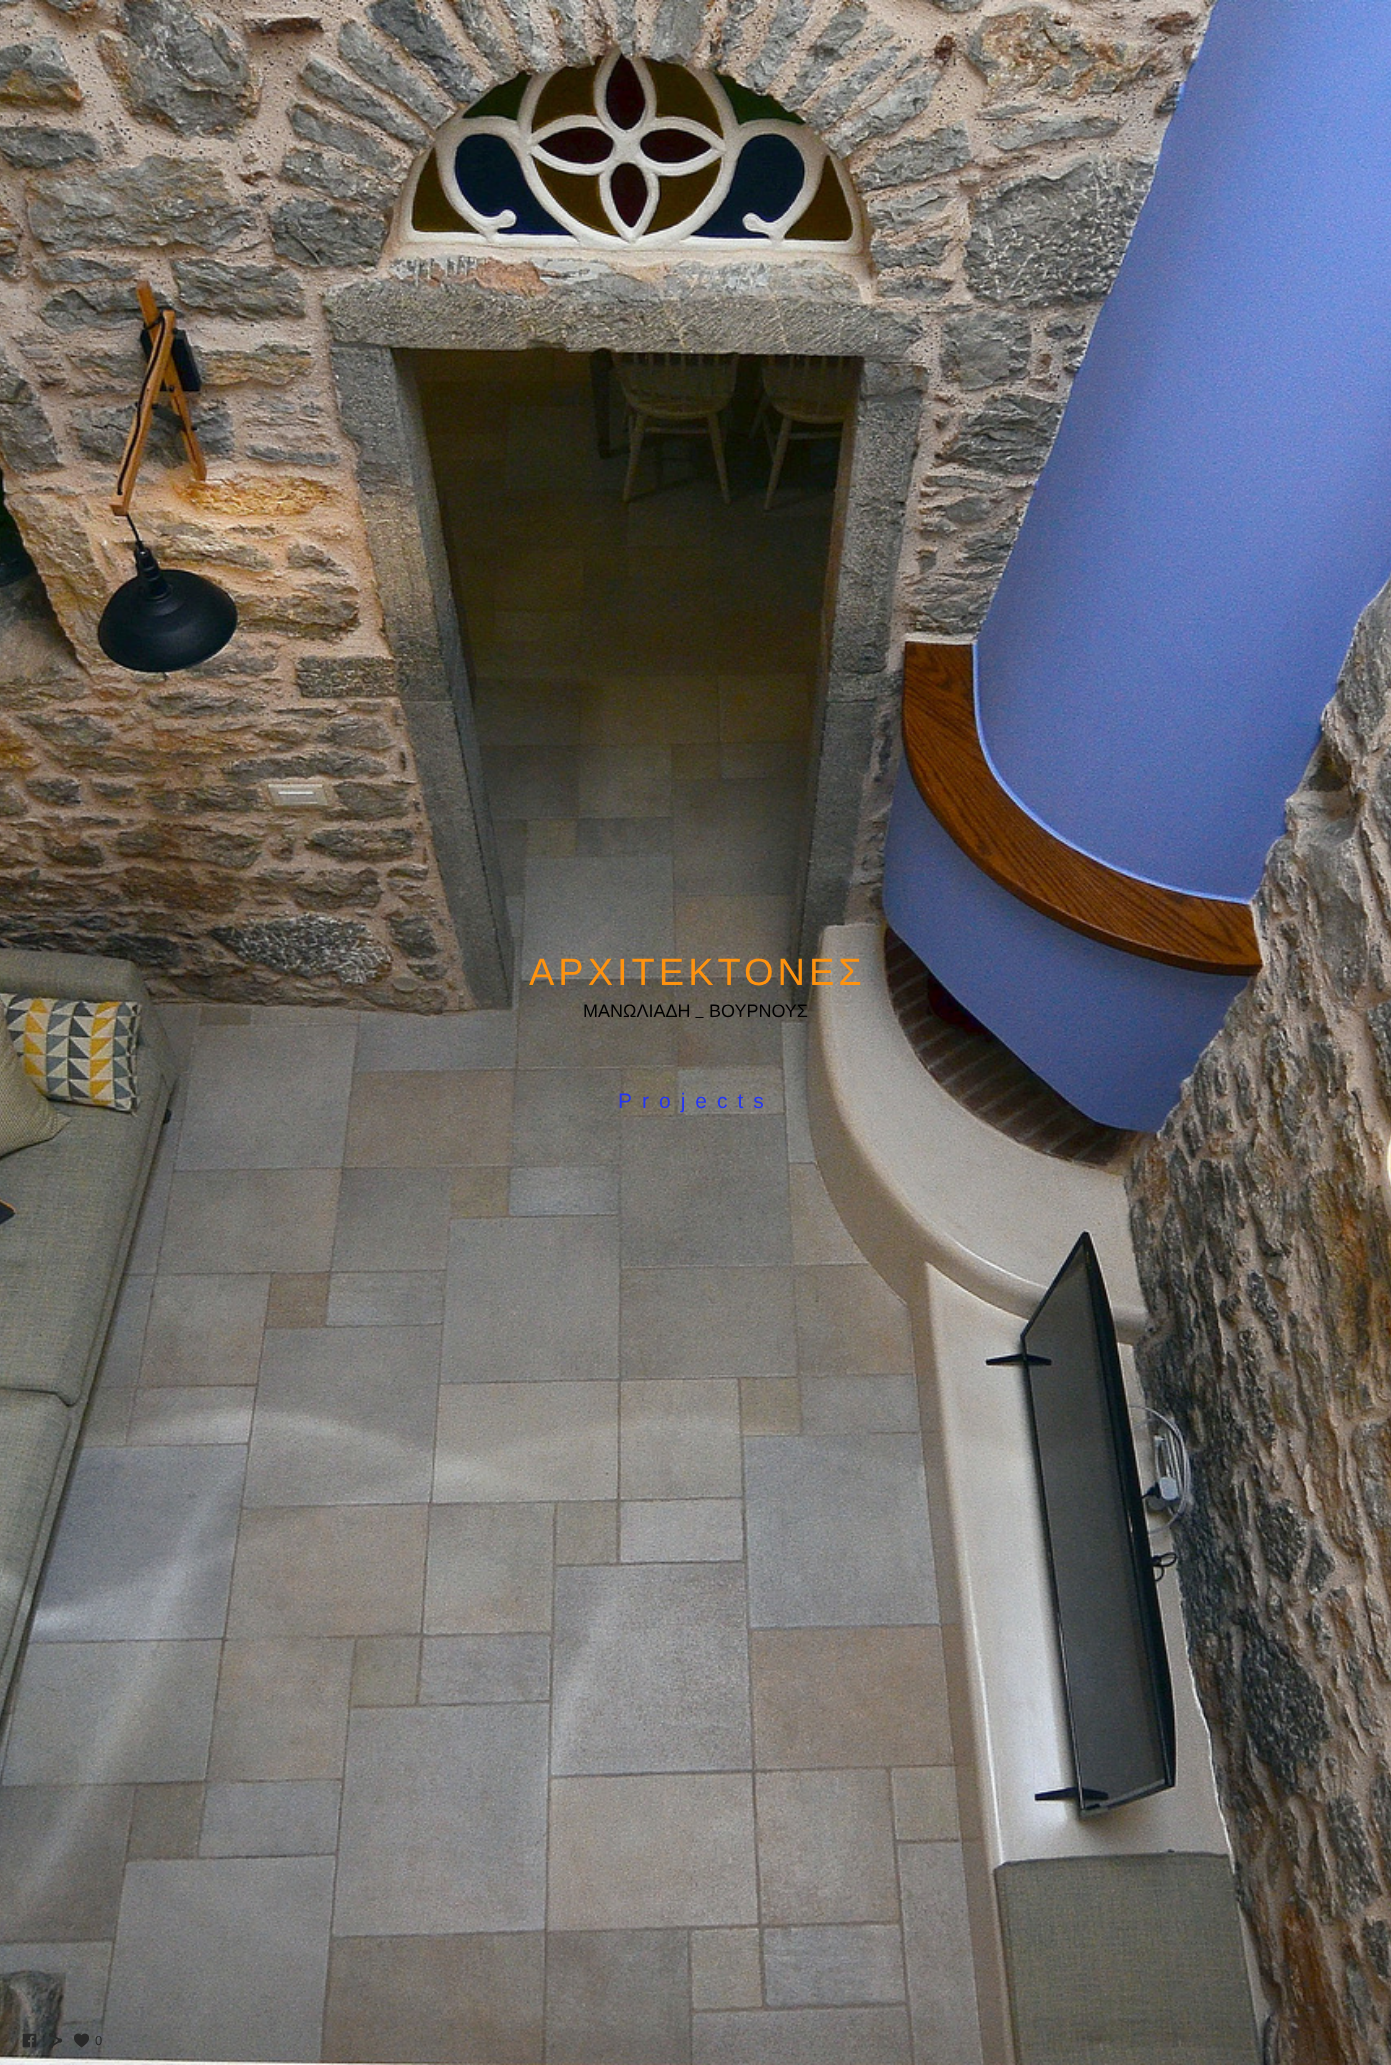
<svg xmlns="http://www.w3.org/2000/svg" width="1391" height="2065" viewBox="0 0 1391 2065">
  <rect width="100%" height="100%" fill="#ffffff"/>
  <image x="0" y="0" width="1391" height="2065" href="img1.png"/>
  <text x="529" y="985" font-family="Liberation Sans" font-size="38" letter-spacing="4" fill="#ff930f">ΑΡΧΙΤΕΚΤΟΝΕΣ</text>
  <text x="583" y="1017" font-family="Liberation Sans" font-size="18" fill="#000000">ΜΑΝΩΛΙΑΔΗ</text>
  <text x="695" y="1017" font-family="Nunito" font-size="18" font-weight="200" fill="#000000">_</text>
  <text x="709" y="1017" font-family="Liberation Sans" font-size="18" fill="#000000">ΒΟΥΡΝΟΥΣ</text>
  <text x="618" y="1108" font-family="Liberation Sans" font-size="21" letter-spacing="10" fill="#2334f5">Projects</text>
  <image x="22" y="2033" width="15" height="15" href="img2.png"/>
  <image x="49" y="2033" width="14" height="15" href="img3.png"/>
  <image x="74" y="2033" width="15" height="15" href="img4.png"/>
  <text x="95" y="2045" font-family="Liberation Sans" font-size="13" fill="#292929">0</text>
</svg>
